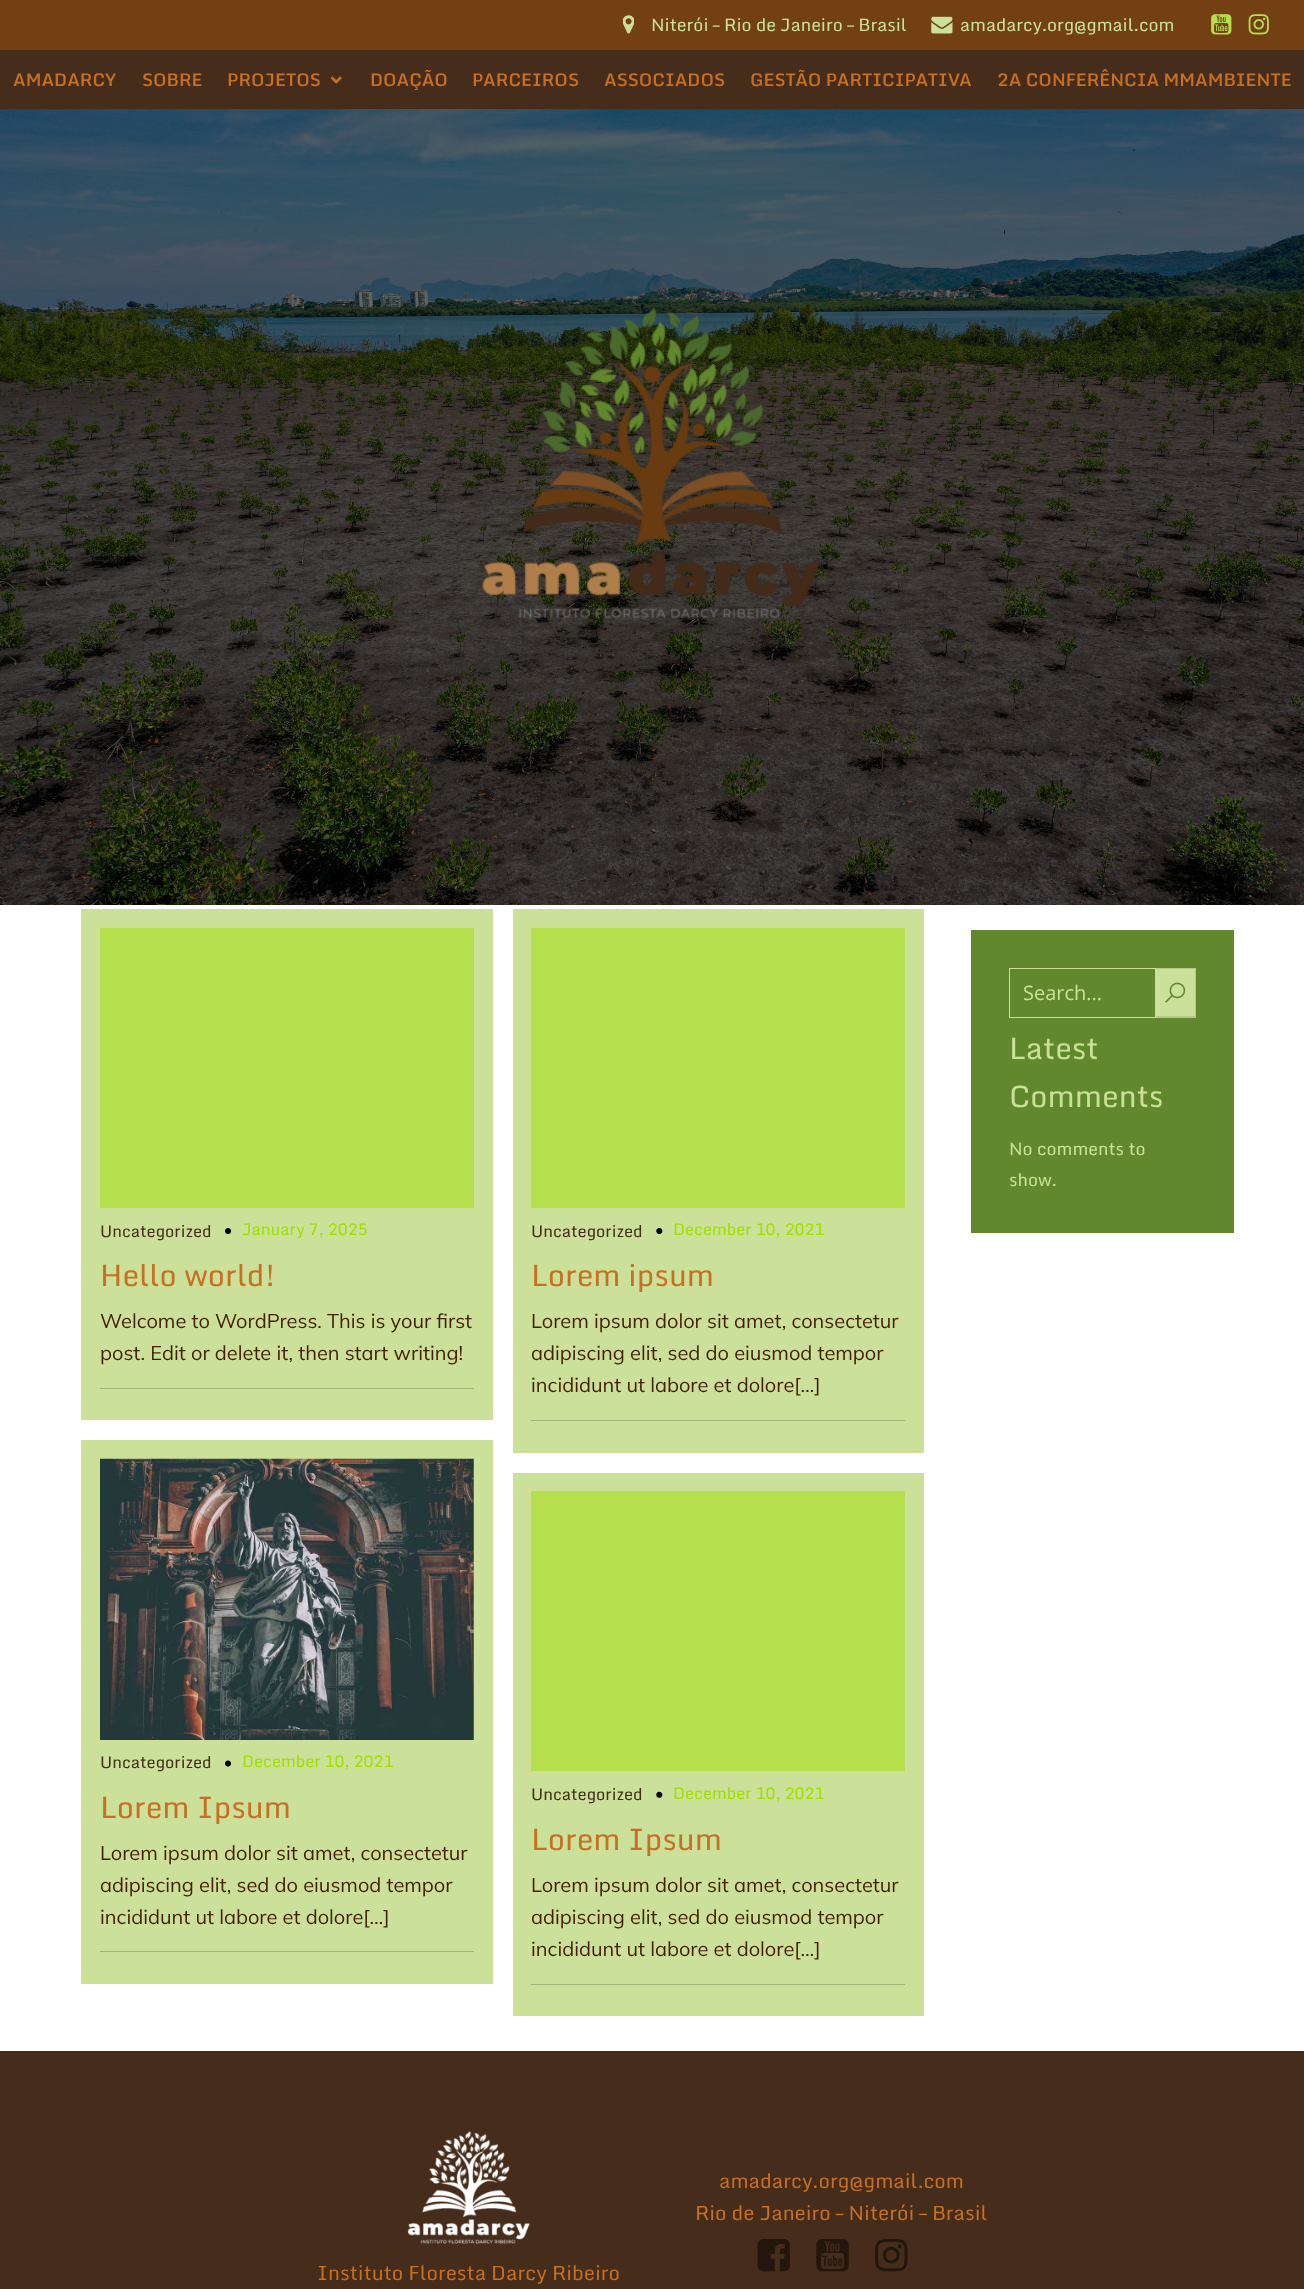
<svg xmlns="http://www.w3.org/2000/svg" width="1304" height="2289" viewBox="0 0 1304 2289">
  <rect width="100%" height="100%" fill="#ffffff"/>
  <rect x="0" y="0" width="1304" height="50" fill="#734014"/>
  <image x="623" y="15" width="11" height="19" href="img1.png"/>
  <text x="651" y="31" font-family="Monda" font-size="17.5" fill="#cbe098">Niterói – Rio de Janeiro – Brasil</text>
  <image x="931" y="16" width="22" height="18" href="img2.png"/>
  <text x="960" y="31" font-family="Monda" font-size="17.5" fill="#cbe098">amadarcy.org@gmail.com</text>
  <image x="1211" y="14" width="21" height="21" href="img3.png"/>
  <image x="1248" y="14" width="21" height="21" href="img4.png"/>
  <rect x="0" y="50" width="1304" height="59" fill="#452c1b"/>
  <text x="13" y="86" font-family="Monda" font-size="17.5" font-weight="600" fill="#c76f22">AMADARCY</text>
  <text x="142" y="86" font-family="Monda" font-size="17.5" font-weight="600" fill="#c76f22">SOBRE</text>
  <text x="227" y="86" font-family="Monda" font-size="17.5" font-weight="600" fill="#c76f22">PROJETOS</text>
  <image x="330" y="76" width="12" height="8" href="img5.png"/>
  <text x="370" y="86" font-family="Monda" font-size="17.5" font-weight="600" fill="#c76f22">DOAÇÃO</text>
  <text x="472" y="86" font-family="Monda" font-size="17.5" font-weight="600" fill="#c76f22">PARCEIROS</text>
  <text x="604" y="86" font-family="Monda" font-size="17.5" font-weight="600" fill="#c76f22">ASSOCIADOS</text>
  <text x="750" y="86" font-family="Monda" font-size="17.5" font-weight="600" fill="#c76f22">GESTÃO PARTICIPATIVA</text>
  <text x="997" y="86" font-family="Monda" font-size="17.5" font-weight="600" fill="#c76f22">2A CONFERÊNCIA MMAMBIENTE</text>
  <image x="0" y="109" width="1304" height="796" href="img6.png"/>
  <image x="482" y="307" width="338" height="312" href="img7.png"/>
  <rect x="971" y="930" width="263" height="303" fill="#61882d"/>
  <rect x="1009.5" y="968.5" width="146" height="49" fill="none" stroke="#cbe098"/>
  <text x="1023" y="1000" font-family="Open Sans" font-size="20" fill="#cbe098">Search...</text>
  <rect x="1156" y="968" width="40" height="50" fill="#cbe098"/>
  <path d="M1156 968H1196L1195 969H1156Z" fill="#b7ca89"/>
  <path d="M1196 968V1018L1195 1016V969Z" fill="#000000" fill-opacity="0.1"/>
  <path d="M1196 1018H1156V1016H1195Z" fill="#000000" fill-opacity="0.1"/>
  <image x="1165" y="982" width="21" height="21" href="img8.png"/>
  <text x="1009" y="1059" font-family="Monda" font-size="30" fill="#cbe098">Latest</text>
  <text x="1009" y="1107" font-family="Monda" font-size="30" fill="#cbe098">Comments</text>
  <text x="1009" y="1155" font-family="Monda" font-size="17.5" fill="#cbe098">No comments to</text>
  <text x="1009" y="1186" font-family="Monda" font-size="17.5" fill="#cbe098">show.</text>
  <rect x="81" y="909" width="412" height="511" fill="#cbe098"/>
  <rect x="100" y="928" width="374" height="280" fill="#b5df4d"/>
  <text x="100" y="1237" font-family="Monda" font-size="16.25" fill="#452c1b">Uncategorized</text>
  <image x="225" y="1228" width="6" height="7" href="img9.png"/>
  <text x="242" y="1235" font-family="Monda" font-size="16.25" fill="#9fdf02">January 7, 2025</text>
  <text x="100" y="1286" font-family="Monda" font-size="30" fill="#c76f22">Hello world!</text>
  <text x="100" y="1328" font-family="Mulish" font-size="20" fill="#441e04">Welcome to WordPress. This is your first</text>
  <text x="100" y="1360" font-family="Mulish" font-size="20" fill="#441e04">post. Edit or delete it, then start writing!</text>
  <rect x="100" y="1388" width="374" height="1" fill="#a2b37a"/>
  <rect x="513" y="909" width="411" height="544" fill="#cbe098"/>
  <rect x="531" y="928" width="374" height="280" fill="#b5df4d"/>
  <text x="531" y="1237" font-family="Monda" font-size="16.25" fill="#452c1b">Uncategorized</text>
  <image x="656" y="1228" width="7" height="7" href="img10.png"/>
  <text x="673" y="1235" font-family="Monda" font-size="16.25" fill="#9fdf02">December 10, 2021</text>
  <text x="531" y="1286" font-family="Monda" font-size="30" fill="#c76f22">Lorem ipsum</text>
  <text x="531" y="1328" font-family="Mulish" font-size="20" fill="#441e04">Lorem ipsum dolor sit amet, consectetur</text>
  <text x="531" y="1360" font-family="Mulish" font-size="20" fill="#441e04">adipiscing elit, sed do eiusmod tempor</text>
  <text x="531" y="1392" font-family="Mulish" font-size="20" fill="#441e04">incididunt ut labore et dolore[…]</text>
  <rect x="531" y="1420" width="374" height="1" fill="#a2b37a"/>
  <rect x="81" y="1440" width="412" height="544" fill="#cbe098"/>
  <image x="100" y="1458" width="374" height="282" href="img11.png"/>
  <text x="100" y="1768" font-family="Monda" font-size="16.25" fill="#452c1b">Uncategorized</text>
  <image x="225" y="1760" width="6" height="7" href="img12.png"/>
  <text x="242" y="1767" font-family="Monda" font-size="16.25" fill="#9fdf02">December 10, 2021</text>
  <text x="100" y="1818" font-family="Monda" font-size="30" fill="#c76f22">Lorem Ipsum</text>
  <text x="100" y="1860" font-family="Mulish" font-size="20" fill="#441e04">Lorem ipsum dolor sit amet, consectetur</text>
  <text x="100" y="1892" font-family="Mulish" font-size="20" fill="#441e04">adipiscing elit, sed do eiusmod tempor</text>
  <text x="100" y="1924" font-family="Mulish" font-size="20" fill="#441e04">incididunt ut labore et dolore[…]</text>
  <rect x="100" y="1951" width="374" height="1" fill="#a2b37a"/>
  <rect x="513" y="1473" width="411" height="543" fill="#cbe098"/>
  <rect x="531" y="1491" width="374" height="280" fill="#b5df4d"/>
  <text x="531" y="1800" font-family="Monda" font-size="16.25" fill="#452c1b">Uncategorized</text>
  <image x="656" y="1791" width="7" height="7" href="img13.png"/>
  <text x="673" y="1799" font-family="Monda" font-size="16.25" fill="#9fdf02">December 10, 2021</text>
  <text x="531" y="1850" font-family="Monda" font-size="30" fill="#c76f22">Lorem Ipsum</text>
  <text x="531" y="1892" font-family="Mulish" font-size="20" fill="#441e04">Lorem ipsum dolor sit amet, consectetur</text>
  <text x="531" y="1924" font-family="Mulish" font-size="20" fill="#441e04">adipiscing elit, sed do eiusmod tempor</text>
  <text x="531" y="1956" font-family="Mulish" font-size="20" fill="#441e04">incididunt ut labore et dolore[…]</text>
  <rect x="531" y="1984" width="374" height="1" fill="#a2b37a"/>
  <rect x="0" y="2051" width="1304" height="238" fill="#452c1b"/>
  <text x="719" y="2188" font-family="Monda" font-size="20" fill="#c76f22">amadarcy.org@gmail.com</text>
  <text x="695" y="2220" font-family="Monda" font-size="20" fill="#c76f22">Rio de Janeiro – Niterói – Brasil</text>
  <image x="757" y="2239" width="33" height="33" href="img14.png"/>
  <image x="816" y="2239" width="33" height="33" href="img15.png"/>
  <image x="875" y="2239" width="33" height="33" href="img16.png"/>
  <image x="407" y="2131" width="123" height="113" href="img17.png"/>
  <text x="317" y="2280" font-family="Monda" font-size="20" fill="#c76f22">Instituto Floresta Darcy Ribeiro</text>
</svg>
